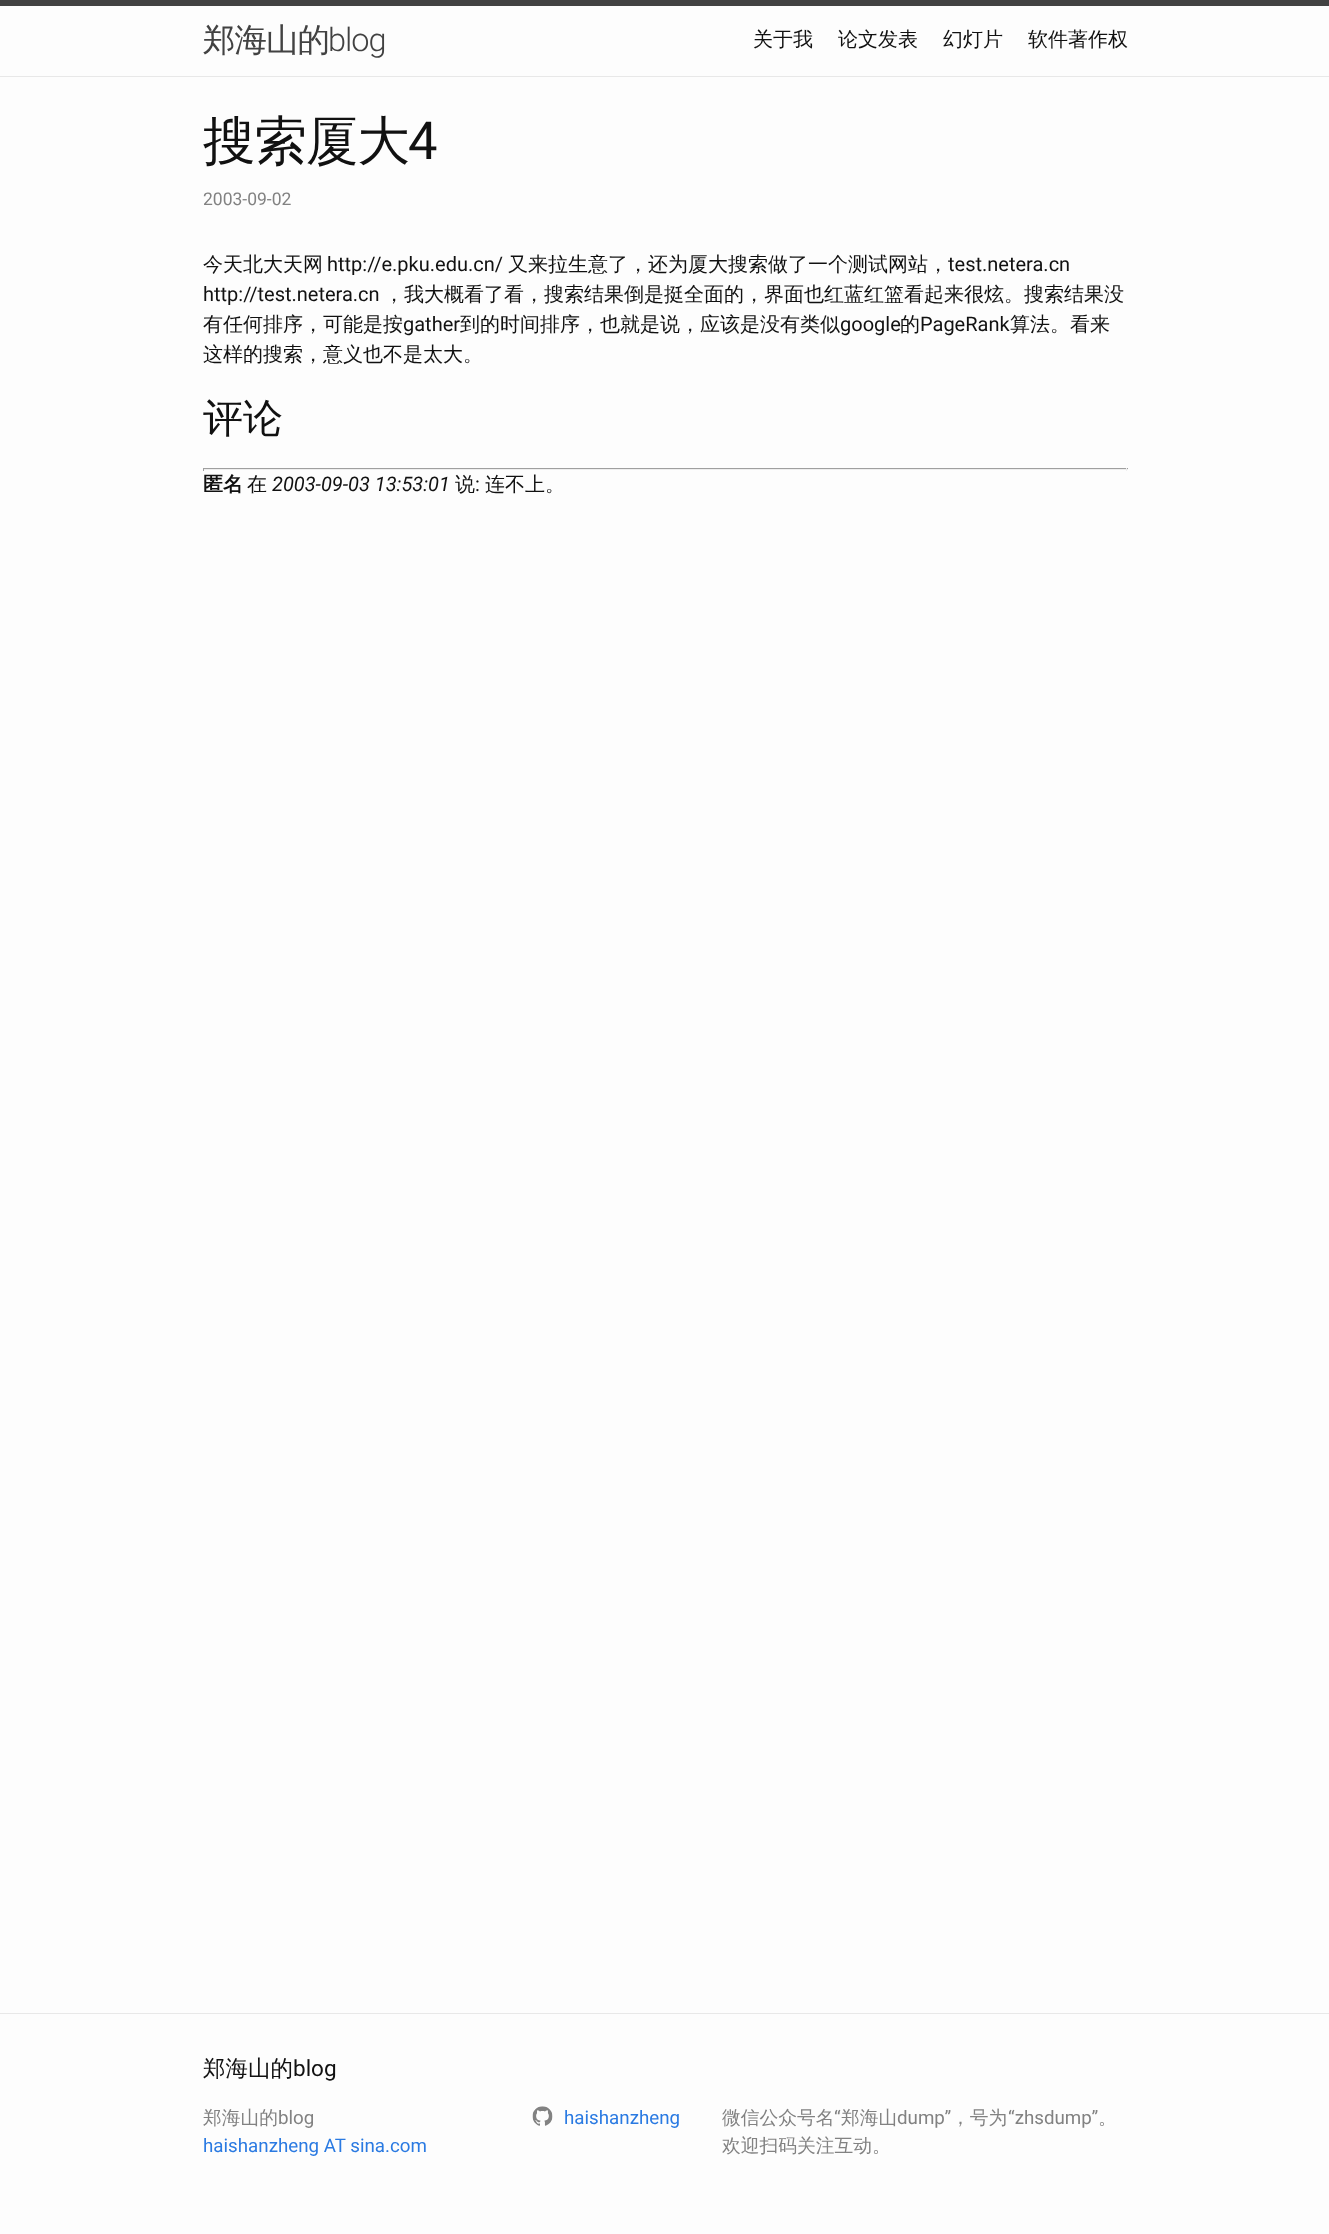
<svg xmlns="http://www.w3.org/2000/svg" width="1329" height="2234" viewBox="0 0 1329 2234">
  <rect width="100%" height="100%" fill="#fdfdfd"/>
  <rect x="0" y="0" width="1329" height="6" fill="#424242"/>
  <rect x="0" y="76" width="1329" height="1" fill="#e8e8e8"/>
  <text x="203" y="51" font-family="WenQuanYi Zen Hei" font-size="32.5" font-weight="500" letter-spacing="-1" fill="#424242">郑海山的</text>
  <text x="328" y="51" font-family="Roboto" font-size="32.5" font-weight="300" letter-spacing="-1" fill="#424242">blog</text>
  <text x="753" y="46" font-family="WenQuanYi Zen Hei" font-size="20" font-weight="500" fill="#111111">关于我</text>
  <text x="838" y="46" font-family="WenQuanYi Zen Hei" font-size="20" font-weight="500" fill="#111111">论文发表</text>
  <text x="943" y="46" font-family="WenQuanYi Zen Hei" font-size="20" font-weight="500" fill="#111111">幻灯片</text>
  <text x="1028" y="46" font-family="WenQuanYi Zen Hei" font-size="20" font-weight="500" fill="#111111">软件著作权</text>
  <text x="203" y="159" font-family="WenQuanYi Zen Hei" font-size="52.5" font-weight="500" letter-spacing="-1" fill="#111111">搜索厦大</text>
  <text x="408" y="159" font-family="Roboto" font-size="52.5" letter-spacing="-1" fill="#111111">4</text>
  <text x="203" y="205" font-family="Roboto" font-size="17.5" fill="#828282">2003-09-02</text>
  <text x="203" y="271" font-family="WenQuanYi Zen Hei" font-size="20" font-weight="500" fill="#111111">今天北大天网</text>
  <text x="327" y="271" font-family="Roboto" font-size="20" fill="#111111">http://e.pku.edu.cn/</text>
  <text x="508" y="271" font-family="WenQuanYi Zen Hei" font-size="20" font-weight="500" fill="#111111">又来拉生意了，还为厦大搜索做了一个测试网站，</text>
  <text x="948" y="271" font-family="Roboto" font-size="20" fill="#111111">test.netera.cn</text>
  <text x="203" y="301" font-family="Roboto" font-size="20" fill="#111111">http://test.netera.cn</text>
  <text x="384" y="301" font-family="WenQuanYi Zen Hei" font-size="20" font-weight="500" fill="#111111">，我大概看了看，搜索结果倒是挺全面的，界面也红蓝红篮看起来很炫。搜索结果没</text>
  <text x="203" y="331" font-family="WenQuanYi Zen Hei" font-size="20" font-weight="500" fill="#111111">有任何排序，可能是按</text>
  <text x="403" y="331" font-family="Roboto" font-size="20" fill="#111111">gather</text>
  <text x="460" y="331" font-family="WenQuanYi Zen Hei" font-size="20" font-weight="500" fill="#111111">到的时间排序，也就是说，应该是没有类似</text>
  <text x="840" y="331" font-family="Roboto" font-size="20" fill="#111111">google</text>
  <text x="900" y="331" font-family="WenQuanYi Zen Hei" font-size="20" font-weight="500" fill="#111111">的</text>
  <text x="920" y="331" font-family="Roboto" font-size="20" fill="#111111">PageRank</text>
  <text x="1010" y="331" font-family="WenQuanYi Zen Hei" font-size="20" font-weight="500" fill="#111111">算法。看来</text>
  <text x="203" y="361" font-family="WenQuanYi Zen Hei" font-size="20" font-weight="500" fill="#111111">这样的搜索，意义也不是太大。</text>
  <text x="203" y="432" font-family="WenQuanYi Zen Hei" font-size="40" font-weight="500" fill="#111111">评论</text>
  <rect x="203" y="468" width="925" height="1" fill="#9f9f9f"/>
  <rect x="1126" y="468" width="1" height="3" fill="#eeeeee"/>
  <rect x="203" y="469" width="925" height="1" fill="#eeeeee"/>
  <rect x="203" y="468" width="1" height="3" fill="#9f9f9f"/>
  <text x="203" y="491" font-family="WenQuanYi Zen Hei" font-size="20" font-weight="bold" fill="#111111">匿名</text>
  <text x="247" y="491" font-family="WenQuanYi Zen Hei" font-size="20" font-weight="500" fill="#111111">在</text>
  <text x="272" y="491" font-family="Roboto" font-size="20" font-style="italic" fill="#111111">2003-09-03 13:53:01</text>
  <text x="455" y="491" font-family="WenQuanYi Zen Hei" font-size="20" font-weight="500" fill="#111111">说</text>
  <text x="475" y="491" font-family="Roboto" font-size="20" fill="#111111">:</text>
  <text x="485" y="491" font-family="WenQuanYi Zen Hei" font-size="20" font-weight="500" fill="#111111">连不上。</text>
  <rect x="0" y="2013" width="1329" height="1" fill="#e8e8e8"/>
  <text x="203" y="2076" font-family="WenQuanYi Zen Hei" font-size="22.5" font-weight="500" fill="#111111">郑海山的</text>
  <text x="293" y="2076" font-family="Roboto" font-size="22.5" fill="#111111">blog</text>
  <text x="203" y="2124" font-family="WenQuanYi Zen Hei" font-size="18.75" font-weight="500" fill="#828282">郑海山的</text>
  <text x="278" y="2124" font-family="Roboto" font-size="18.75" fill="#828282">blog</text>
  <text x="203" y="2152" font-family="Roboto" font-size="18.75" fill="#2a7ae2">haishanzheng AT sina.com</text>
  <image x="532" y="2106" width="21" height="20" href="img1.png"/>
  <text x="564" y="2124" font-family="Roboto" font-size="18.75" fill="#2a7ae2">haishanzheng</text>
  <text x="722" y="2124" font-family="WenQuanYi Zen Hei" font-size="18.75" font-weight="500" fill="#828282">微信公众号名</text>
  <text x="834" y="2124" font-family="Roboto" font-size="18.75" fill="#828282">“</text>
  <text x="841" y="2124" font-family="WenQuanYi Zen Hei" font-size="18.75" font-weight="500" fill="#828282">郑海山</text>
  <text x="897" y="2124" font-family="Roboto" font-size="18.75" fill="#828282">dump”</text>
  <text x="951" y="2124" font-family="WenQuanYi Zen Hei" font-size="18.75" font-weight="500" fill="#828282">，号为</text>
  <text x="1008" y="2124" font-family="Roboto" font-size="18.75" fill="#828282">“zhsdump”</text>
  <text x="1098" y="2124" font-family="WenQuanYi Zen Hei" font-size="18.75" font-weight="500" fill="#828282">。</text>
  <text x="722" y="2152" font-family="WenQuanYi Zen Hei" font-size="18.75" font-weight="500" fill="#828282">欢迎扫码关注互动。</text>
</svg>
